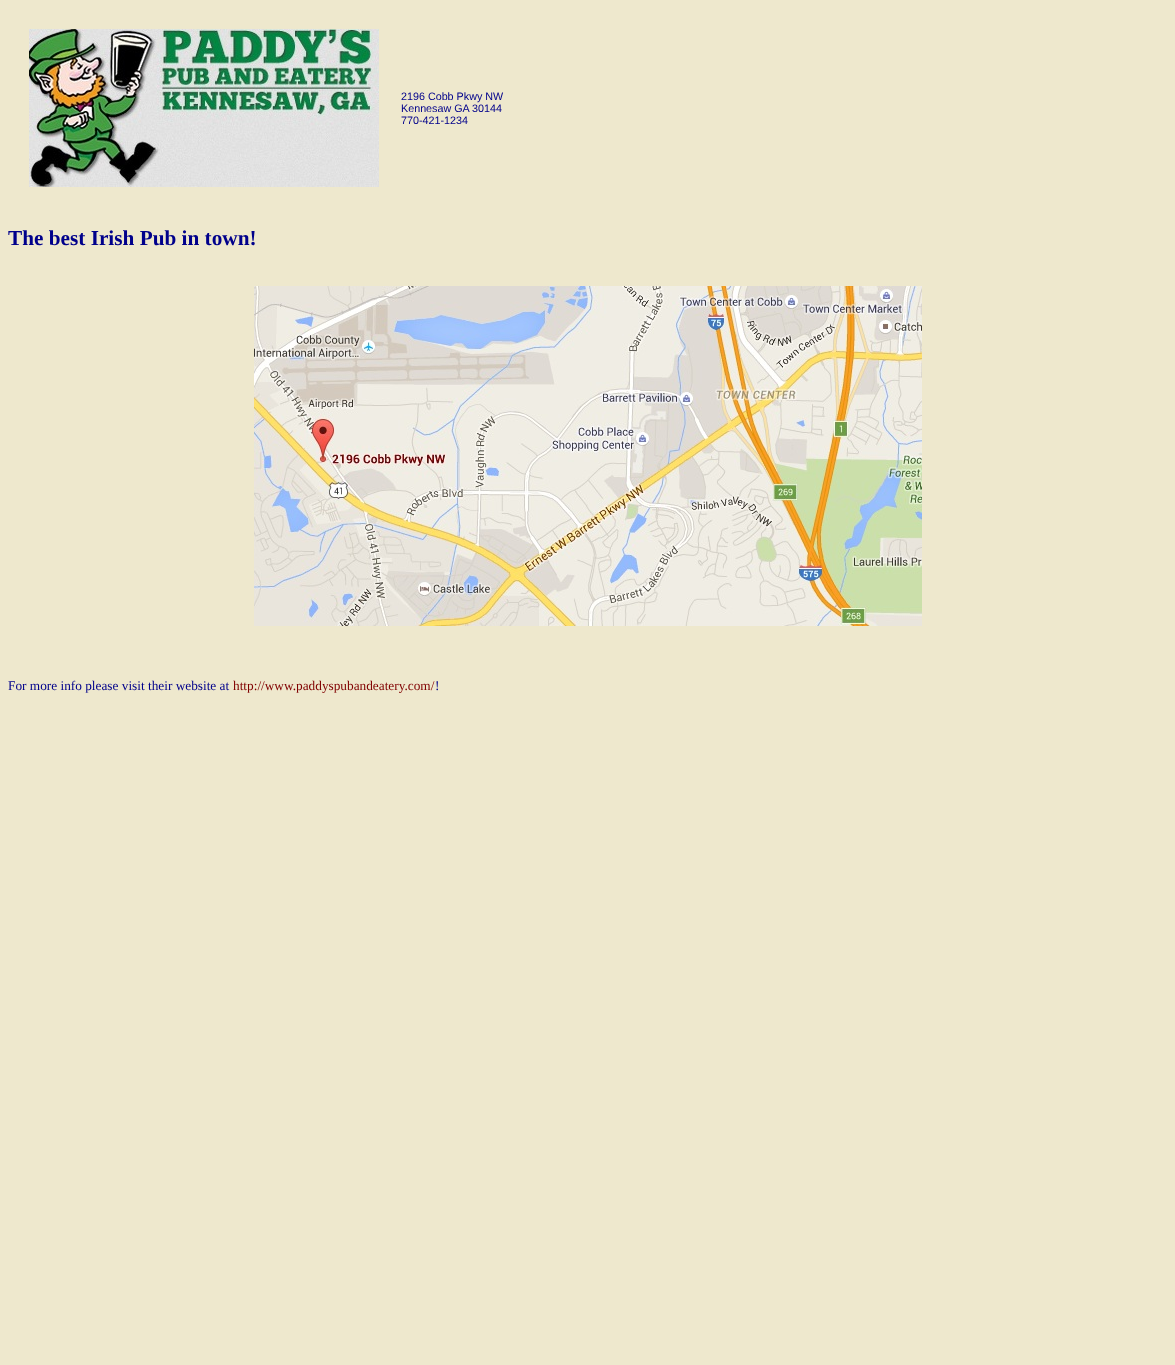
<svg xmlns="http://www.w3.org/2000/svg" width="1175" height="1365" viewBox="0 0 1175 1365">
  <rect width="100%" height="100%" fill="#eee8cd"/>
  <image x="29" y="29" width="350" height="158" href="img1.png"/>
  <text x="401" y="100" font-family="Liberation Sans" font-size="10.75" fill="#00008b">2196 Cobb Pkwy NW</text>
  <text x="401" y="112" font-family="Liberation Sans" font-size="10.75" fill="#00008b">Kennesaw GA 30144</text>
  <text x="401" y="124" font-family="Liberation Sans" font-size="10.75" fill="#00008b">770-421-1234</text>
  <text x="8" y="245" font-family="Liberation Serif" font-size="21.25" font-weight="bold" fill="#00008b">The best Irish Pub in town!</text>
  <image x="254" y="286" width="668" height="340" href="img2.png"/>
  <text x="8" y="690" font-family="Liberation Serif" font-size="13.3" fill="#00008b">For more info please visit their website at</text>
  <text x="233" y="690" font-family="Liberation Serif" font-size="13.3" fill="#800000">http://www.paddyspubandeatery.com/</text>
  <text x="435" y="690" font-family="Liberation Serif" font-size="13.3" fill="#00008b">!</text>
</svg>
